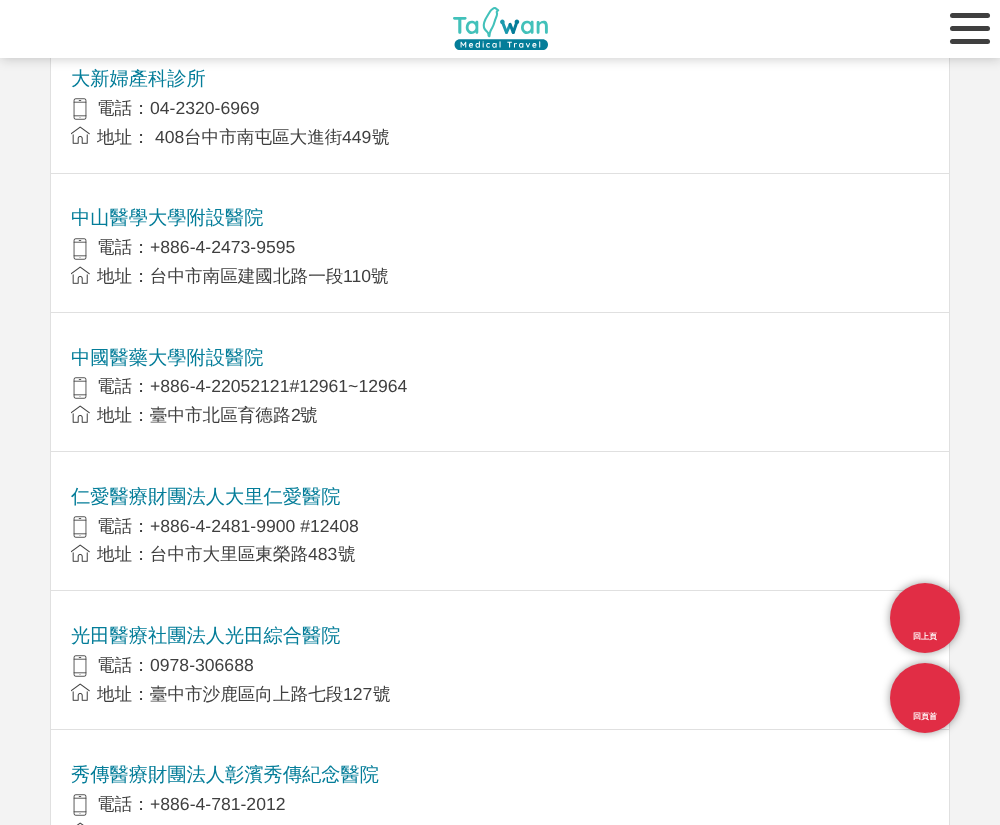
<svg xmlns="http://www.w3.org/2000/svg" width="1000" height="825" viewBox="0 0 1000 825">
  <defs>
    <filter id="blur1" x="-50%" y="-200%" width="200%" height="500%"><feGaussianBlur stdDeviation="6"/></filter>
    <filter id="blur2" x="-50%" y="-200%" width="200%" height="500%"><feGaussianBlur stdDeviation="4"/></filter>
  </defs>
  <rect width="100%" height="100%" fill="#f3f3f3"/>
  <rect x="51" y="58" width="898" height="767" fill="#ffffff"/>
  <rect x="50.5" y="43.5" width="899" height="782" fill="none" stroke="#e0e0e0"/>
  <rect x="1" y="-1" width="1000" height="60" fill="#000000" fill-opacity="0.2" filter="url(#blur1)"/>
  <rect x="0" y="0" width="1000" height="58" fill="#ffffff"/>
  <image x="453" y="7" width="95" height="43" href="img1.png"/>
  <rect x="950" y="26" width="40" height="5" rx="2.5" fill="#3f3f3f"/>
  <rect x="950" y="13" width="40" height="5" rx="2.5" fill="#3f3f3f"/>
  <rect x="950" y="39" width="40" height="5" rx="2.5" fill="#3f3f3f"/>
  <rect x="51" y="173" width="898" height="1" fill="#e0e0e0"/>
  <text x="71" y="85" font-family="WenQuanYi Zen Hei" font-size="19.25" font-weight="500" fill="#047d99">大新婦產科診所</text>
  <image x="73" y="98" width="14" height="22" href="img2.png"/>
  <text x="97" y="114" font-family="WenQuanYi Zen Hei" font-size="17.6" font-weight="500" fill="#3f3f3f">電話：</text>
  <text x="150" y="114" font-family="Liberation Sans" font-size="17.6" fill="#3f3f3f">04-2320-6969</text>
  <image x="71" y="126" width="19" height="18" href="img3.png"/>
  <text x="97" y="143" font-family="WenQuanYi Zen Hei" font-size="17.6" font-weight="500" fill="#3f3f3f">地址：</text>
  <text x="155" y="143" font-family="Liberation Sans" font-size="17.6" fill="#3f3f3f">408</text>
  <text x="184" y="143" font-family="WenQuanYi Zen Hei" font-size="17.6" font-weight="500" fill="#3f3f3f">台中市南屯區大進街</text>
  <text x="342" y="143" font-family="Liberation Sans" font-size="17.6" fill="#3f3f3f">449</text>
  <text x="372" y="143" font-family="WenQuanYi Zen Hei" font-size="17.6" font-weight="500" fill="#3f3f3f">號</text>
  <rect x="51" y="312" width="898" height="1" fill="#e0e0e0"/>
  <text x="71" y="224" font-family="WenQuanYi Zen Hei" font-size="19.25" font-weight="500" fill="#047d99">中山醫學大學附設醫院</text>
  <image x="73" y="238" width="14" height="22" href="img2.png"/>
  <text x="97" y="253" font-family="WenQuanYi Zen Hei" font-size="17.6" font-weight="500" fill="#3f3f3f">電話：</text>
  <text x="150" y="253" font-family="Liberation Sans" font-size="17.6" fill="#3f3f3f">+886-4-2473-9595</text>
  <image x="71" y="266" width="19" height="18" href="img3.png"/>
  <text x="97" y="282" font-family="WenQuanYi Zen Hei" font-size="17.6" font-weight="500" fill="#3f3f3f">地址：台中市南區建國北路一段</text>
  <text x="343" y="282" font-family="Liberation Sans" font-size="17.6" fill="#3f3f3f">110</text>
  <text x="371" y="282" font-family="WenQuanYi Zen Hei" font-size="17.6" font-weight="500" fill="#3f3f3f">號</text>
  <rect x="51" y="451" width="898" height="1" fill="#e0e0e0"/>
  <text x="71" y="364" font-family="WenQuanYi Zen Hei" font-size="19.25" font-weight="500" fill="#047d99">中國醫藥大學附設醫院</text>
  <image x="73" y="377" width="14" height="22" href="img2.png"/>
  <text x="97" y="392" font-family="WenQuanYi Zen Hei" font-size="17.6" font-weight="500" fill="#3f3f3f">電話：</text>
  <text x="150" y="392" font-family="Liberation Sans" font-size="17.6" fill="#3f3f3f">+886-4-22052121#12961~12964</text>
  <image x="71" y="405" width="19" height="18" href="img3.png"/>
  <text x="97" y="421" font-family="WenQuanYi Zen Hei" font-size="17.6" font-weight="500" fill="#3f3f3f">地址：臺中市北區育德路</text>
  <text x="291" y="421" font-family="Liberation Sans" font-size="17.6" fill="#3f3f3f">2</text>
  <text x="300" y="421" font-family="WenQuanYi Zen Hei" font-size="17.6" font-weight="500" fill="#3f3f3f">號</text>
  <rect x="51" y="590" width="898" height="1" fill="#e0e0e0"/>
  <text x="71" y="503" font-family="WenQuanYi Zen Hei" font-size="19.25" font-weight="500" fill="#047d99">仁愛醫療財團法人大里仁愛醫院</text>
  <image x="73" y="516" width="14" height="22" href="img2.png"/>
  <text x="97" y="532" font-family="WenQuanYi Zen Hei" font-size="17.6" font-weight="500" fill="#3f3f3f">電話：</text>
  <text x="150" y="532" font-family="Liberation Sans" font-size="17.6" fill="#3f3f3f">+886-4-2481-9900 #12408</text>
  <image x="71" y="544" width="19" height="18" href="img3.png"/>
  <text x="97" y="560" font-family="WenQuanYi Zen Hei" font-size="17.6" font-weight="500" fill="#3f3f3f">地址：台中市大里區東榮路</text>
  <text x="308" y="560" font-family="Liberation Sans" font-size="17.6" fill="#3f3f3f">483</text>
  <text x="338" y="560" font-family="WenQuanYi Zen Hei" font-size="17.6" font-weight="500" fill="#3f3f3f">號</text>
  <rect x="51" y="729" width="898" height="1" fill="#e0e0e0"/>
  <text x="71" y="642" font-family="WenQuanYi Zen Hei" font-size="19.25" font-weight="500" fill="#047d99">光田醫療社團法人光田綜合醫院</text>
  <image x="73" y="655" width="14" height="22" href="img2.png"/>
  <text x="97" y="671" font-family="WenQuanYi Zen Hei" font-size="17.6" font-weight="500" fill="#3f3f3f">電話：</text>
  <text x="150" y="671" font-family="Liberation Sans" font-size="17.6" fill="#3f3f3f">0978-306688</text>
  <image x="71" y="683" width="19" height="18" href="img3.png"/>
  <text x="97" y="700" font-family="WenQuanYi Zen Hei" font-size="17.6" font-weight="500" fill="#3f3f3f">地址：臺中市沙鹿區向上路七段</text>
  <text x="343" y="700" font-family="Liberation Sans" font-size="17.6" fill="#3f3f3f">127</text>
  <text x="373" y="700" font-family="WenQuanYi Zen Hei" font-size="17.6" font-weight="500" fill="#3f3f3f">號</text>
  <text x="71" y="781" font-family="WenQuanYi Zen Hei" font-size="19.25" font-weight="500" fill="#047d99">秀傳醫療財團法人彰濱秀傳紀念醫院</text>
  <image x="73" y="794" width="14" height="22" href="img2.png"/>
  <text x="97" y="810" font-family="WenQuanYi Zen Hei" font-size="17.6" font-weight="500" fill="#3f3f3f">電話：</text>
  <text x="150" y="810" font-family="Liberation Sans" font-size="17.6" fill="#3f3f3f">+886-4-781-2012</text>
  <image x="76" y="822" width="8" height="3" href="img4.png"/>
  <rect x="890" y="583" width="70" height="70" rx="35" fill="#000000" fill-opacity="0.4" filter="url(#blur2)"/>
  <circle cx="925" cy="618" r="35" fill="#e12d45"/>
  <text x="913" y="639" font-family="WenQuanYi Zen Hei" font-size="8" font-weight="bold" fill="#ffffff">回上頁</text>
  <rect x="890" y="663" width="70" height="70" rx="35" fill="#000000" fill-opacity="0.4" filter="url(#blur2)"/>
  <circle cx="925" cy="698" r="35" fill="#e12d45"/>
  <text x="913" y="719" font-family="WenQuanYi Zen Hei" font-size="8" font-weight="bold" fill="#ffffff">回頁首</text>
</svg>
